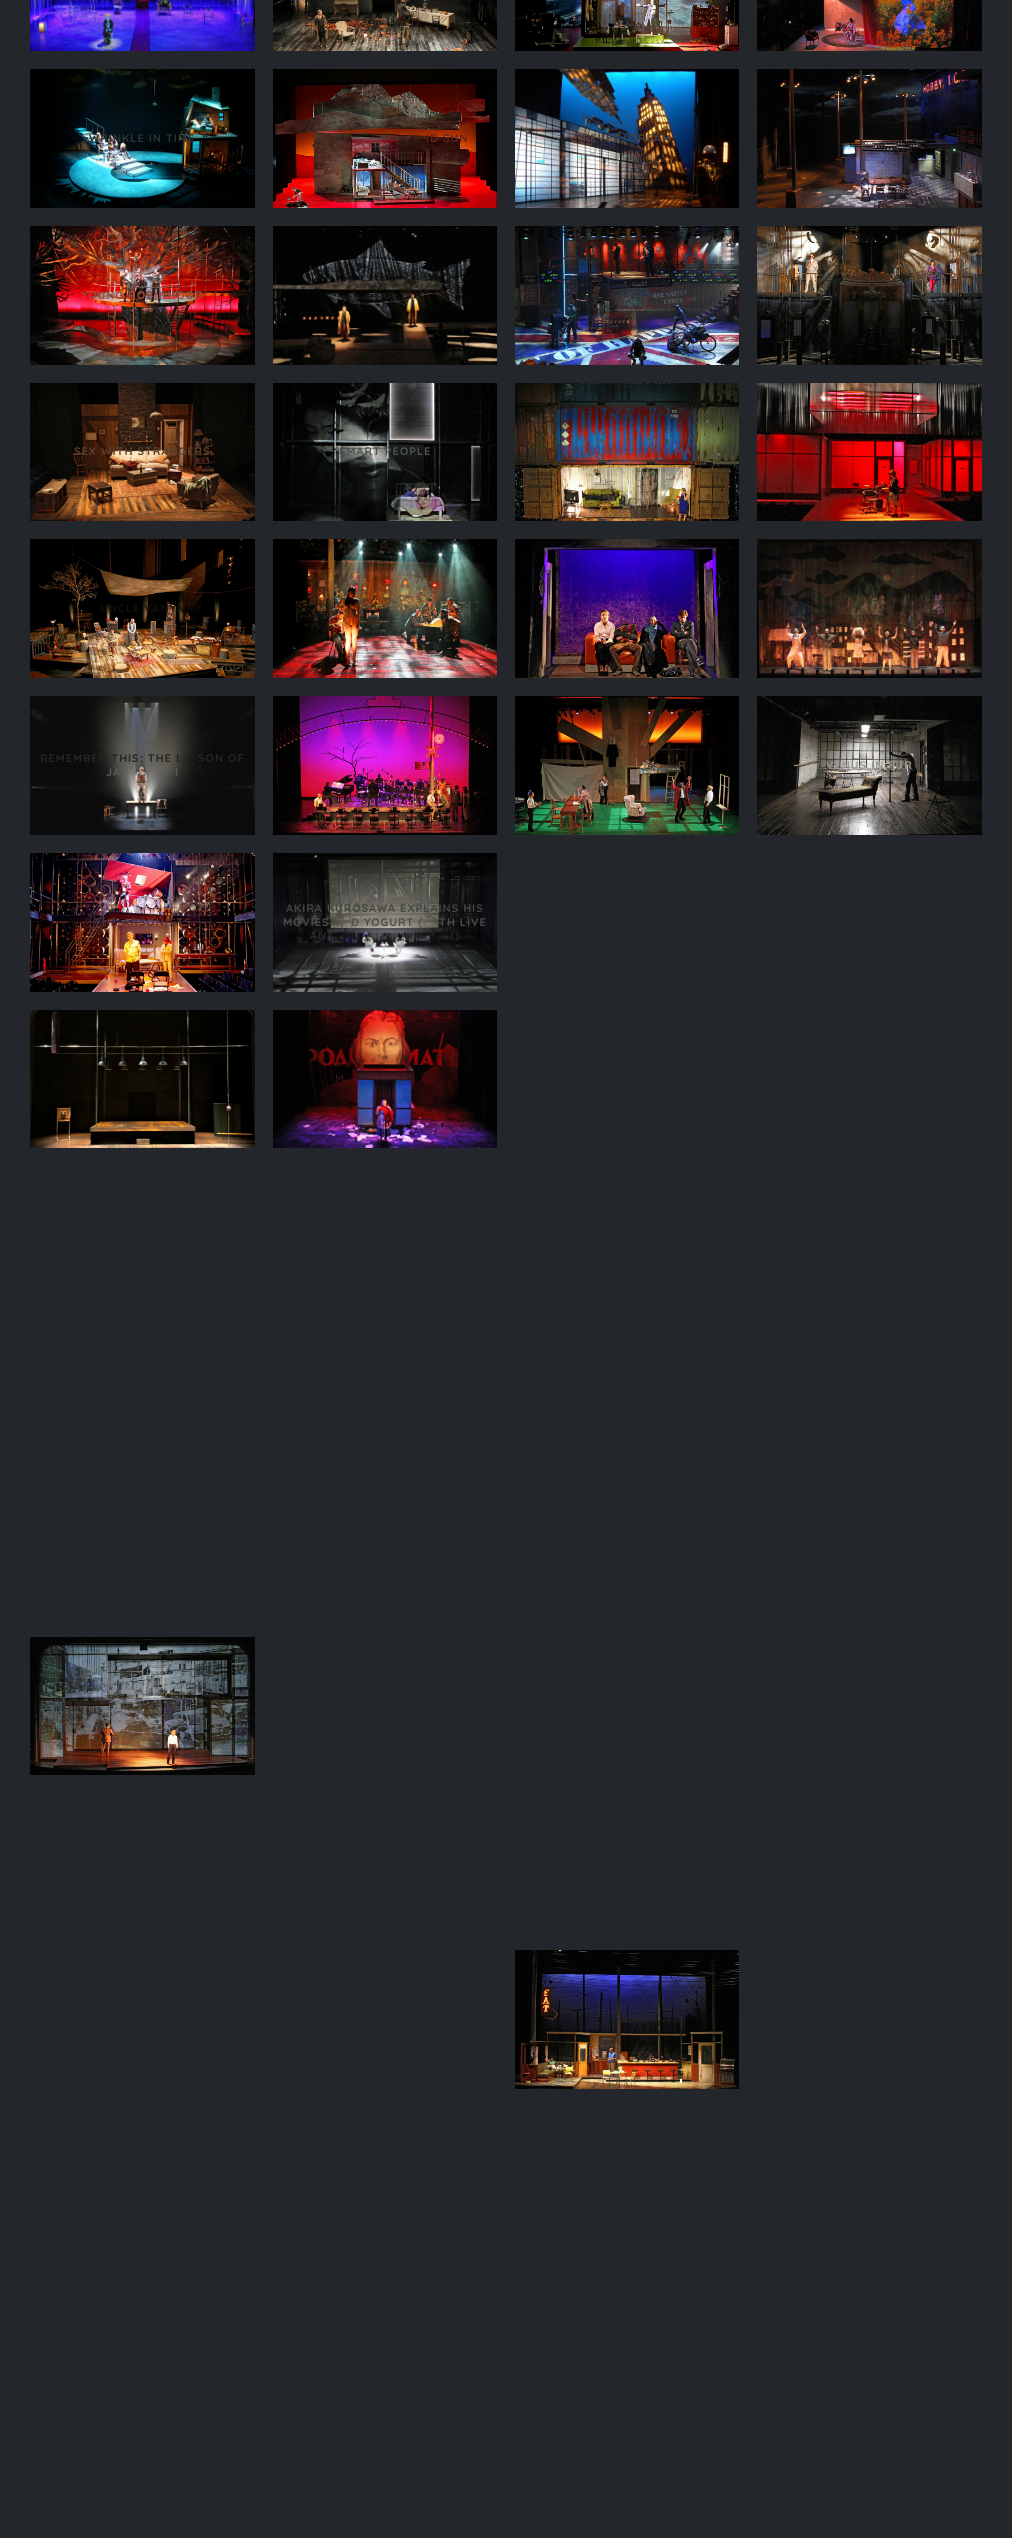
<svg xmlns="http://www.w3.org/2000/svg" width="1012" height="2538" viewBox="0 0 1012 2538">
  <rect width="100%" height="100%" fill="#23262b"/>
  <image x="30" y="0" width="225" height="51" href="img1.png"/>
  <image x="273" y="0" width="224" height="51" href="img2.png"/>
  <image x="515" y="0" width="224" height="51" href="img3.png"/>
  <image x="757" y="0" width="225" height="51" href="img4.png"/>
  <image x="30" y="69" width="225" height="139" href="img5.png"/>
  <text x="89" y="142" font-family="Quicksand" font-size="11" font-weight="bold" letter-spacing="1" fill="#2c3537">WRINKLE IN TIME</text>
  <image x="273" y="69" width="224" height="139" href="img6.png"/>
  <text x="426" y="142" font-family="Quicksand" font-size="11" font-weight="bold" letter-spacing="1" fill="#5d2617">ID SUN</text>
  <image x="515" y="69" width="224" height="139" href="img7.png"/>
  <text x="583" y="142" font-family="Quicksand" font-size="11" font-weight="bold" letter-spacing="1" fill="#48403f">FEVER/DREAM</text>
  <image x="757" y="69" width="225" height="139" href="img8.png"/>
  <image x="30" y="226" width="225" height="139" href="img9.png"/>
  <text x="81" y="299" font-family="Quicksand" font-size="11" font-weight="bold" letter-spacing="1" fill="#9b493f">YOUNG ROBINHOOD</text>
  <image x="273" y="226" width="224" height="139" href="img10.png"/>
  <image x="515" y="226" width="224" height="139" href="img11.png"/>
  <image x="757" y="226" width="225" height="139" href="img12.png"/>
  <text x="851" y="299" font-family="Quicksand" font-size="11" font-weight="bold" letter-spacing="1" fill="#2e2a23">T</text>
  <text x="880" y="299" font-family="Quicksand" font-size="11" font-weight="bold" letter-spacing="1" fill="#2e2a23">A</text>
  <image x="30" y="383" width="225" height="138" href="img13.png"/>
  <text x="74" y="455" font-family="Quicksand" font-size="11" font-weight="bold" letter-spacing="1" fill="#5e412c">SEX WITH STRANGERS</text>
  <image x="273" y="383" width="224" height="138" href="img14.png"/>
  <text x="339" y="455" font-family="Quicksand" font-size="11" font-weight="bold" letter-spacing="1" fill="#505451">SMART PEOPLE</text>
  <image x="515" y="383" width="224" height="138" href="img15.png"/>
  <text x="563" y="455" font-family="Quicksand" font-size="11" font-weight="bold" letter-spacing="1" fill="#5f3e5d">MR. BURNS @ WILMA</text>
  <image x="757" y="383" width="225" height="138" href="img16.png"/>
  <image x="30" y="539" width="225" height="139" href="img17.png"/>
  <text x="100" y="612" font-family="Quicksand" font-size="11" font-weight="bold" letter-spacing="1" fill="#170f09">UNCLE VANYA</text>
  <image x="273" y="539" width="224" height="139" href="img18.png"/>
  <image x="515" y="539" width="224" height="139" href="img19.png"/>
  <image x="757" y="539" width="225" height="139" href="img20.png"/>
  <image x="30" y="696" width="225" height="139" href="img21.png"/>
  <text x="40" y="762" font-family="Quicksand" font-size="11" font-weight="bold" letter-spacing="1" fill="#272624">REMEMBER THIS: THE L</text>
  <text x="198" y="762" font-family="Quicksand" font-size="11" font-weight="bold" letter-spacing="1" fill="#272624">SON OF</text>
  <text x="106" y="776" font-family="Quicksand" font-size="11" font-weight="bold" letter-spacing="1" fill="#5e5b56">JA</text>
  <text x="175" y="776" font-family="Quicksand" font-size="11" font-weight="bold" letter-spacing="1" fill="#5e5b56">I</text>
  <image x="273" y="696" width="224" height="139" href="img22.png"/>
  <text x="420" y="769" font-family="Quicksand" font-size="11" font-weight="bold" letter-spacing="1" fill="#d41eac">D</text>
  <image x="515" y="696" width="224" height="139" href="img23.png"/>
  <text x="647" y="769" font-family="Quicksand" font-size="11" font-weight="bold" letter-spacing="1" fill="#4b3b2a">A</text>
  <text x="678" y="769" font-family="Quicksand" font-size="11" font-weight="bold" letter-spacing="1" fill="#4b3b2a">R</text>
  <image x="757" y="696" width="225" height="139" href="img24.png"/>
  <text x="826" y="769" font-family="Quicksand" font-size="11" font-weight="bold" letter-spacing="1" fill="#97948f">VENUS IN FUR</text>
  <image x="30" y="853" width="225" height="139" href="img25.png"/>
  <text x="94" y="926" font-family="Quicksand" font-size="11" font-weight="bold" letter-spacing="1" fill="#5a2e2f">THE ARSONISTS</text>
  <image x="273" y="853" width="224" height="139" href="img26.png"/>
  <text x="286" y="912" font-family="Quicksand" font-size="11" font-weight="bold" letter-spacing="1" fill="#464641">AKIRA KUROSAWA EXPLAINS HIS</text>
  <text x="283" y="926" font-family="Quicksand" font-size="11" font-weight="bold" letter-spacing="1" fill="#4e4d49">MOVIES</text>
  <text x="351" y="926" font-family="Quicksand" font-size="11" font-weight="bold" letter-spacing="1" fill="#4e4d49">D YOGURT (</text>
  <text x="439" y="926" font-family="Quicksand" font-size="11" font-weight="bold" letter-spacing="1" fill="#4e4d49">TH LIVE</text>
  <text x="310" y="939" font-family="Quicksand" font-size="11" font-weight="bold" letter-spacing="1" fill="#292a2e">AN</text>
  <text x="451" y="939" font-family="Quicksand" font-size="11" font-weight="bold" letter-spacing="1" fill="#292a2e">!)</text>
  <image x="30" y="1010" width="225" height="138" href="img27.png"/>
  <image x="273" y="1010" width="224" height="138" href="img28.png"/>
  <text x="335" y="1082" font-family="Quicksand" font-size="11" font-weight="bold" letter-spacing="1" fill="#2c131e">M</text>
  <image x="30" y="1637" width="225" height="138" href="img29.png"/>
  <image x="515" y="1950" width="224" height="139" href="img30.png"/>
</svg>
